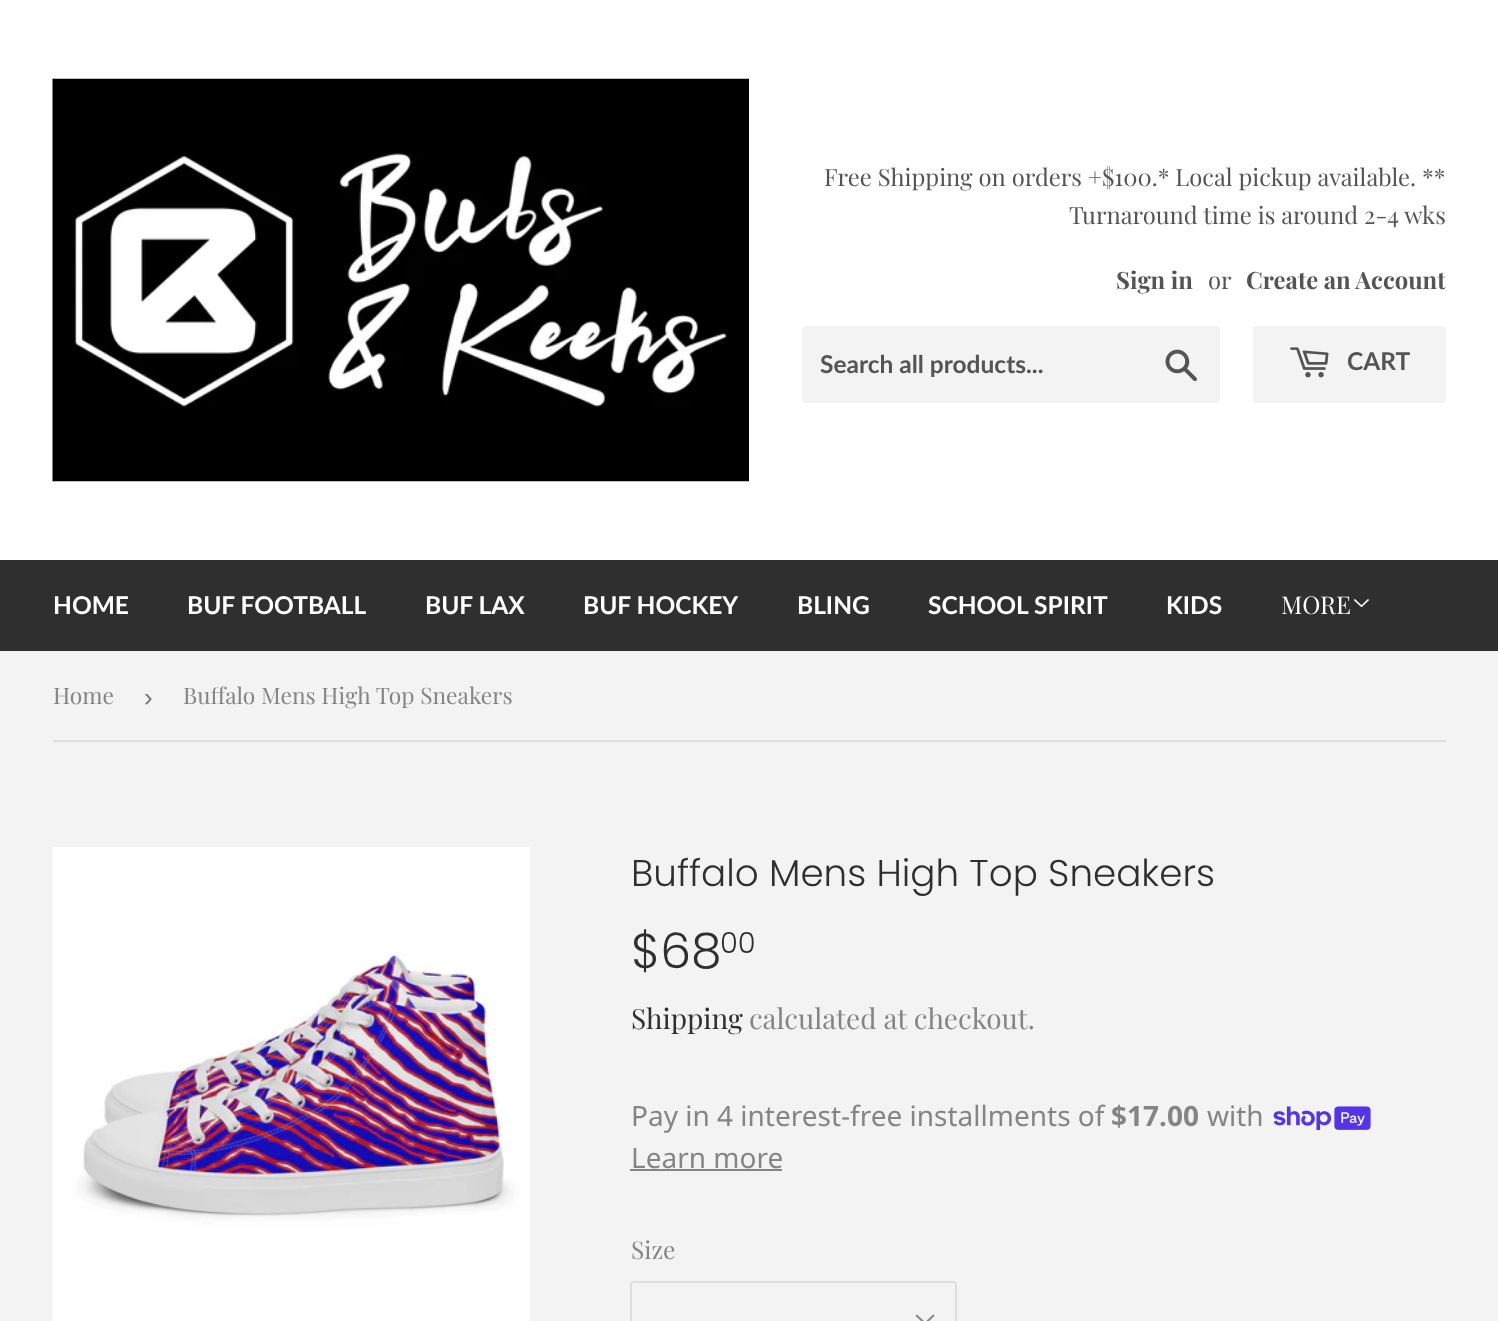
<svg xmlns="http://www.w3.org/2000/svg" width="1498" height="1321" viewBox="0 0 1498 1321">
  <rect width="100%" height="100%" fill="#f3f3f3"/>
  <rect x="0" y="0" width="1498" height="560" fill="#ffffff"/>
  <image x="52" y="78" width="697" height="404" href="img1.png"/>
  <text x="824" y="186" font-family="Playfair Display" font-size="23.8" fill="#545454">Free Shipping on orders +$100.* Local pickup available. **</text>
  <text x="1069" y="224" font-family="Playfair Display" font-size="23.8" fill="#545454">Turnaround time is around 2-4 wks</text>
  <text x="1116" y="289" font-family="Playfair Display" font-size="23.8" font-weight="bold" fill="#545454">Sign in</text>
  <text x="1208" y="289" font-family="Playfair Display" font-size="23.8" fill="#545454">or</text>
  <text x="1246" y="289" font-family="Playfair Display" font-size="23.8" font-weight="bold" fill="#545454">Create an Account</text>
  <rect x="802" y="326" width="418" height="77" rx="4" fill="#f3f3f3"/>
  <text x="820" y="373" font-family="Lato" font-size="24.5" font-weight="bold" fill="#545454">Search all products...</text>
  <image x="1165" y="349" width="32" height="32" href="img2.png"/>
  <rect x="1253" y="326" width="193" height="77" rx="4" fill="#f3f3f3"/>
  <image x="1290" y="347" width="39" height="31" href="img3.png"/>
  <text x="1347" y="370" font-family="Lato" font-size="24.5" font-weight="bold" fill="#545454">CART</text>
  <rect x="0" y="560" width="1498" height="91" fill="#2f2f2f"/>
  <text x="53" y="614" font-family="Lato" font-size="24.5" font-weight="bold" fill="#ffffff">HOME</text>
  <text x="187" y="614" font-family="Lato" font-size="24.5" font-weight="bold" fill="#ffffff">BUF FOOTBALL</text>
  <text x="425" y="614" font-family="Lato" font-size="24.5" font-weight="bold" fill="#ffffff">BUF LAX</text>
  <text x="583" y="614" font-family="Lato" font-size="24.5" font-weight="bold" fill="#ffffff">BUF HOCKEY</text>
  <text x="797" y="614" font-family="Lato" font-size="24.5" font-weight="bold" fill="#ffffff">BLING</text>
  <text x="928" y="614" font-family="Lato" font-size="24.5" font-weight="bold" fill="#ffffff">SCHOOL SPIRIT</text>
  <text x="1166" y="614" font-family="Lato" font-size="24.5" font-weight="bold" fill="#ffffff">KIDS</text>
  <text x="1281" y="614" font-family="Playfair Display" font-size="24.5" fill="#ffffff">MORE</text>
  <image x="1354" y="599" width="15" height="9" href="img4.png"/>
  <rect x="53" y="740" width="1393" height="2" fill="#dedede"/>
  <text x="53" y="704" font-family="Playfair Display" font-size="22.75" fill="#858585">Home</text>
  <text x="144" y="706" font-family="Liberation Sans" font-size="26" fill="#767676">›</text>
  <text x="183" y="704" font-family="Playfair Display" font-size="22.75" fill="#858585">Buffalo Mens High Top Sneakers</text>
  <image x="52" y="847" width="478" height="474" href="img5.png"/>
  <text x="631" y="886" font-family="Poppins" font-size="37.3" font-weight="300" fill="#2f2f2f">Buffalo Mens High Top Sneakers</text>
  <text x="631" y="968" font-family="Poppins" font-size="49" font-weight="300" fill="#2f2f2f">$68</text>
  <text x="720" y="953" font-family="Poppins" font-size="29" font-weight="300" fill="#2f2f2f">00</text>
  <text x="631" y="1029" font-family="Playfair Display" font-size="28" fill="#2f2f2f">Shipping</text>
  <text x="749" y="1029" font-family="Playfair Display" font-size="28" fill="#858585">calculated at checkout.</text>
  <text x="631" y="1126" font-family="Noto Sans" font-size="28" fill="#858585">Pay in 4 interest-free installments of</text>
  <text x="1111" y="1126" font-family="Noto Sans" font-size="28" font-weight="bold" fill="#858585">$17.00</text>
  <text x="1207" y="1126" font-family="Noto Sans" font-size="28" fill="#858585">with</text>
  <image x="1273" y="1106" width="98" height="24" href="img6.png"/>
  <text x="631" y="1168" font-family="Noto Sans" font-size="28" fill="#858585">Learn more</text>
  <rect x="630" y="1169" width="152" height="2" fill="#858585"/>
  <text x="631" y="1259" font-family="Playfair Display" font-size="24.5" fill="#858585">Size</text>
  <image x="915" y="1314" width="20" height="7" href="img7.png"/>
  <rect x="631" y="1282" width="325" height="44" rx="3" fill="none" stroke="#dedede" stroke-width="2"/>
</svg>
